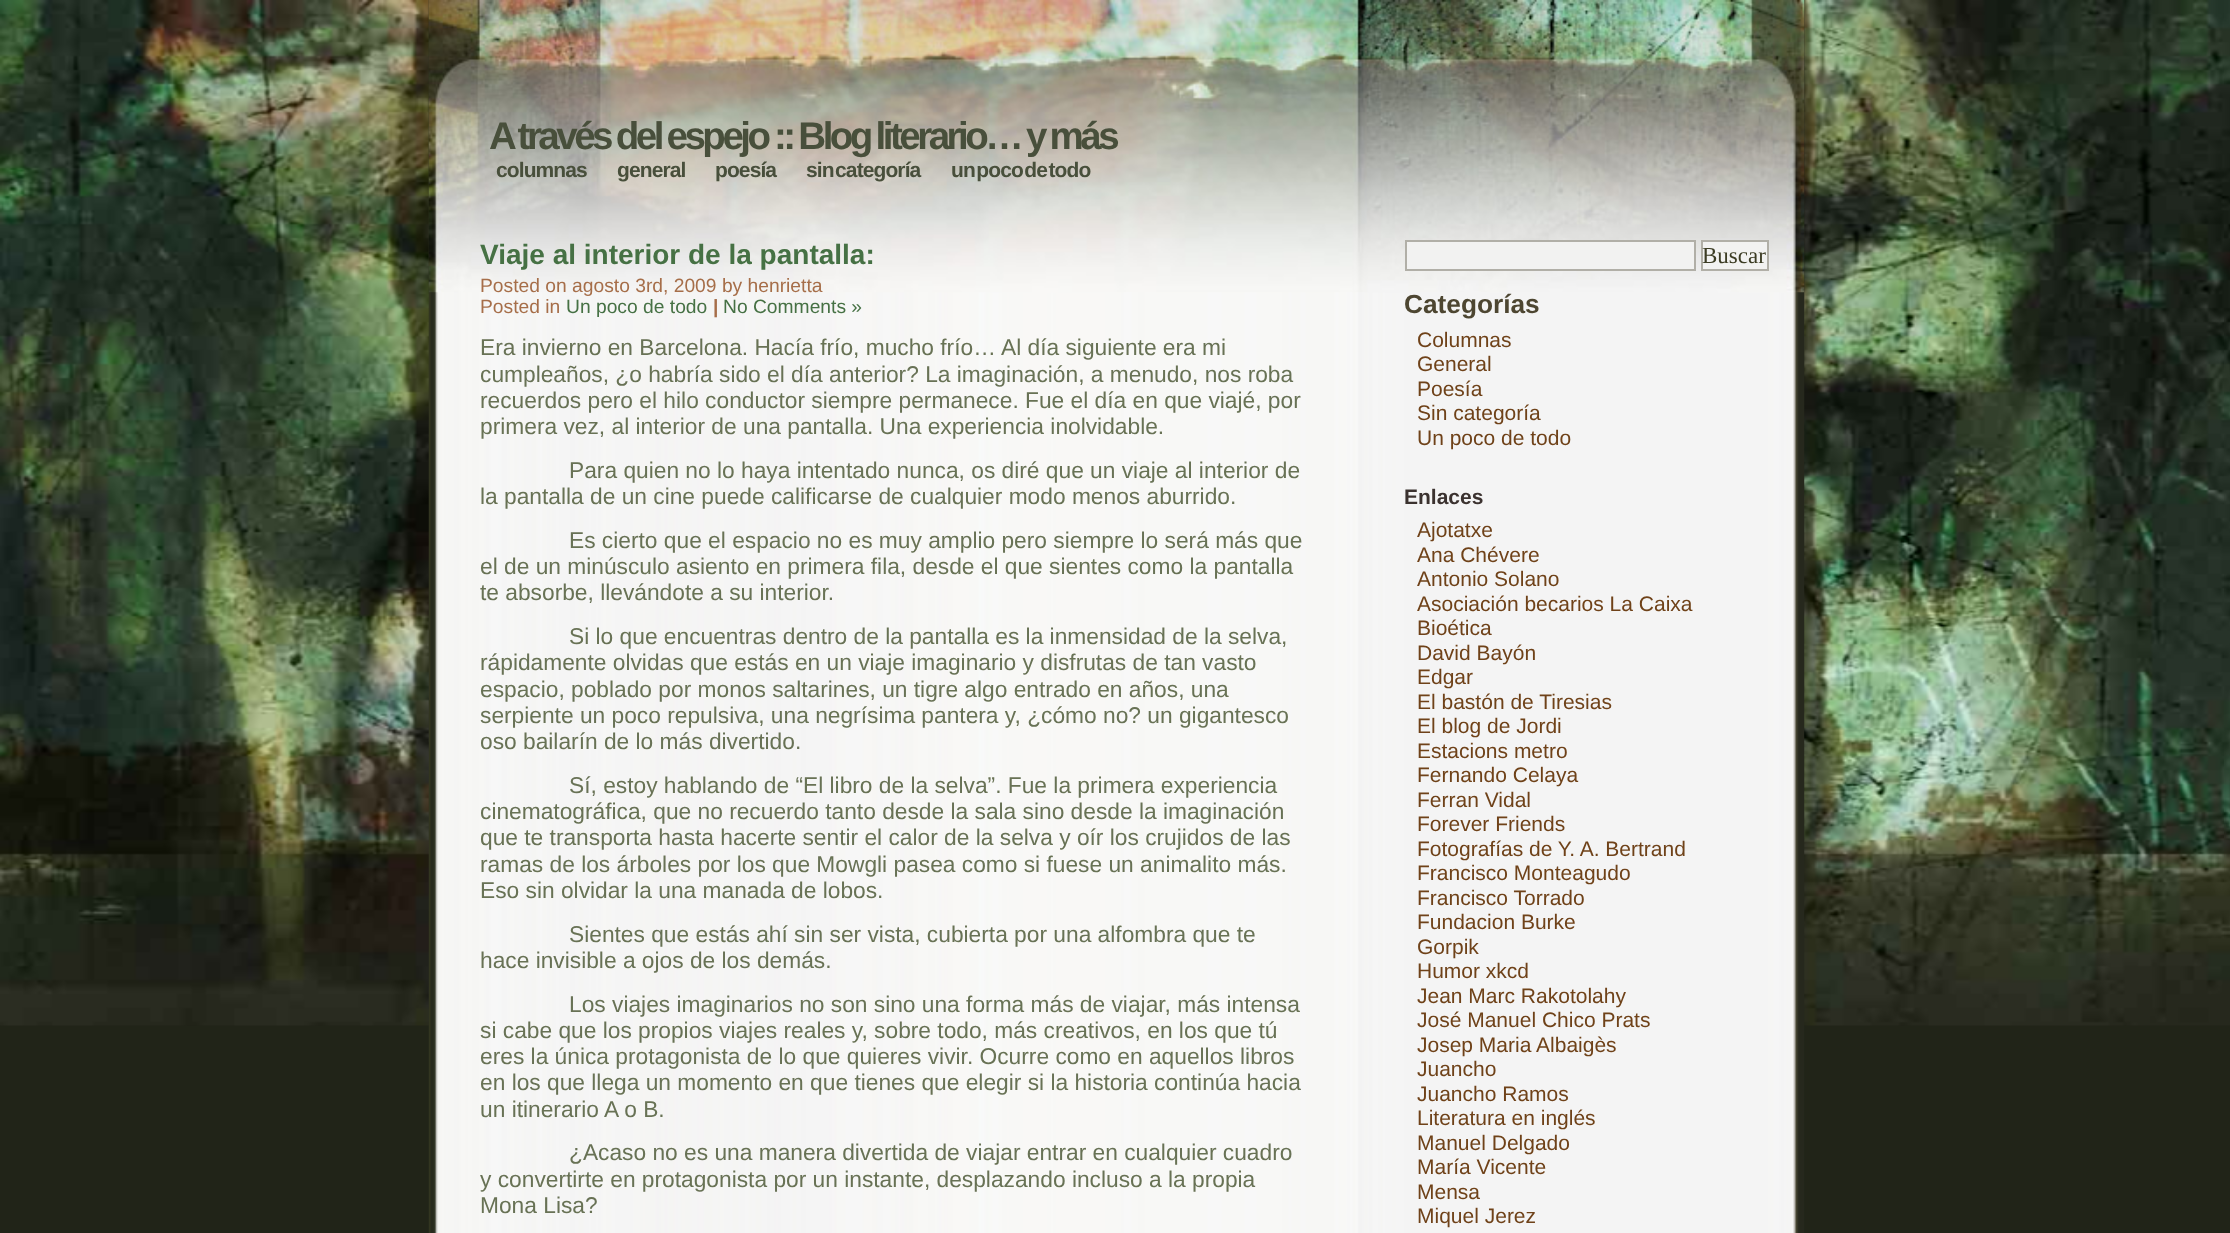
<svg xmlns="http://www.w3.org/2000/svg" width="2230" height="1233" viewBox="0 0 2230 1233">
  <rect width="100%" height="100%" fill="#212418"/>
  <image x="0" y="0" width="2230" height="1026" href="img1.png"/>
  <image x="428" y="0" width="1377" height="1233" href="img2.png"/>
  <image x="428" y="0" width="1377" height="293" href="img3.png"/>
  <text x="489" y="149" word-spacing="-1.5" font-family="Liberation Sans" font-size="38.5" font-weight="bold" letter-spacing="-3.5" fill="#484f3b">A través del espejo</text>
  <text x="774" y="149" word-spacing="-1.5" font-family="Liberation Sans" font-size="38.5" font-weight="bold" letter-spacing="-3.5" fill="#484f3b">:: Blog literario… y más</text>
  <text x="496" y="177" font-family="Liberation Sans" font-size="21" font-weight="bold" letter-spacing="-0.9" fill="#484f3b">columnas</text>
  <text x="617" y="177" font-family="Liberation Sans" font-size="21" font-weight="bold" letter-spacing="-0.9" fill="#484f3b">general</text>
  <text x="715" y="177" font-family="Liberation Sans" font-size="21" font-weight="bold" letter-spacing="-0.9" fill="#484f3b">poesía</text>
  <text x="806" y="177" word-spacing="-3.5" font-family="Liberation Sans" font-size="21" font-weight="bold" letter-spacing="-0.9" fill="#484f3b">sin categoría</text>
  <text x="951" y="177" word-spacing="-3.5" font-family="Liberation Sans" font-size="21" font-weight="bold" letter-spacing="-0.9" fill="#484f3b">un poco de todo</text>
  <text x="480" y="264" font-family="Liberation Sans" font-size="28" font-weight="bold" fill="#467144">Viaje al interior de la pantalla:</text>
  <text x="480" y="292" font-family="Liberation Sans" font-size="19.25" fill="#a66e49">Posted on agosto 3rd, 2009 by henrietta</text>
  <text x="480" y="313" font-family="Liberation Sans" font-size="19.25" fill="#a66e49">Posted in</text>
  <text x="566" y="313" font-family="Liberation Sans" font-size="19.25" fill="#467144">Un poco de todo</text>
  <text x="713" y="313" font-family="Liberation Sans" font-size="19.25" font-weight="bold" fill="#a66e49">|</text>
  <text x="723" y="313" font-family="Liberation Sans" font-size="19.25" fill="#467144">No Comments »</text>
  <text x="480" y="355" font-family="Liberation Sans" font-size="22.75" fill="#687255">Era invierno en Barcelona. Hacía frío, mucho frío… Al día siguiente era mi</text>
  <text x="480" y="382" font-family="Liberation Sans" font-size="22.75" fill="#687255">cumpleaños, ¿o habría sido el día anterior? La imaginación, a menudo, nos roba</text>
  <text x="480" y="408" font-family="Liberation Sans" font-size="22.75" fill="#687255">recuerdos pero el hilo conductor siempre permanece. Fue el día en que viajé, por</text>
  <text x="480" y="434" font-family="Liberation Sans" font-size="22.75" fill="#687255">primera vez, al interior de una pantalla. Una experiencia inolvidable.</text>
  <text x="569" y="478" font-family="Liberation Sans" font-size="22.75" fill="#687255">Para quien no lo haya intentado nunca, os diré que un viaje al interior de</text>
  <text x="480" y="504" font-family="Liberation Sans" font-size="22.75" fill="#687255">la pantalla de un cine puede calificarse de cualquier modo menos aburrido.</text>
  <text x="569" y="548" font-family="Liberation Sans" font-size="22.75" fill="#687255">Es cierto que el espacio no es muy amplio pero siempre lo será más que</text>
  <text x="480" y="574" font-family="Liberation Sans" font-size="22.75" fill="#687255">el de un minúsculo asiento en primera fila, desde el que sientes como la pantalla</text>
  <text x="480" y="600" font-family="Liberation Sans" font-size="22.75" fill="#687255">te absorbe, llevándote a su interior.</text>
  <text x="569" y="644" font-family="Liberation Sans" font-size="22.75" fill="#687255">Si lo que encuentras dentro de la pantalla es la inmensidad de la selva,</text>
  <text x="480" y="670" font-family="Liberation Sans" font-size="22.75" fill="#687255">rápidamente olvidas que estás en un viaje imaginario y disfrutas de tan vasto</text>
  <text x="480" y="697" font-family="Liberation Sans" font-size="22.75" fill="#687255">espacio, poblado por monos saltarines, un tigre algo entrado en años, una</text>
  <text x="480" y="723" font-family="Liberation Sans" font-size="22.75" fill="#687255">serpiente un poco repulsiva, una negrísima pantera y, ¿cómo no? un gigantesco</text>
  <text x="480" y="749" font-family="Liberation Sans" font-size="22.75" fill="#687255">oso bailarín de lo más divertido.</text>
  <text x="569" y="793" font-family="Liberation Sans" font-size="22.75" fill="#687255">Sí, estoy hablando de “El libro de la selva”. Fue la primera experiencia</text>
  <text x="480" y="819" font-family="Liberation Sans" font-size="22.75" fill="#687255">cinematográfica, que no recuerdo tanto desde la sala sino desde la imaginación</text>
  <text x="480" y="845" font-family="Liberation Sans" font-size="22.75" fill="#687255">que te transporta hasta hacerte sentir el calor de la selva y oír los crujidos de las</text>
  <text x="480" y="872" font-family="Liberation Sans" font-size="22.75" fill="#687255">ramas de los árboles por los que Mowgli pasea como si fuese un animalito más.</text>
  <text x="480" y="898" font-family="Liberation Sans" font-size="22.75" fill="#687255">Eso sin olvidar la una manada de lobos.</text>
  <text x="569" y="942" font-family="Liberation Sans" font-size="22.75" fill="#687255">Sientes que estás ahí sin ser vista, cubierta por una alfombra que te</text>
  <text x="480" y="968" font-family="Liberation Sans" font-size="22.75" fill="#687255">hace invisible a ojos de los demás.</text>
  <text x="569" y="1012" font-family="Liberation Sans" font-size="22.75" fill="#687255">Los viajes imaginarios no son sino una forma más de viajar, más intensa</text>
  <text x="480" y="1038" font-family="Liberation Sans" font-size="22.75" fill="#687255">si cabe que los propios viajes reales y, sobre todo, más creativos, en los que tú</text>
  <text x="480" y="1064" font-family="Liberation Sans" font-size="22.75" fill="#687255">eres la única protagonista de lo que quieres vivir. Ocurre como en aquellos libros</text>
  <text x="480" y="1090" font-family="Liberation Sans" font-size="22.75" fill="#687255">en los que llega un momento en que tienes que elegir si la historia continúa hacia</text>
  <text x="480" y="1117" font-family="Liberation Sans" font-size="22.75" fill="#687255">un itinerario A o B.</text>
  <text x="569" y="1160" font-family="Liberation Sans" font-size="22.75" fill="#687255">¿Acaso no es una manera divertida de viajar entrar en cualquier cuadro</text>
  <text x="480" y="1187" font-family="Liberation Sans" font-size="22.75" fill="#687255">y convertirte en protagonista por un instante, desplazando incluso a la propia</text>
  <text x="480" y="1213" font-family="Liberation Sans" font-size="22.75" fill="#687255">Mona Lisa?</text>
  <rect x="1406" y="241" width="289" height="29" fill="#f2f2f1" stroke="#b1afa7" stroke-width="2"/>
  <rect x="1702" y="241" width="66" height="29" fill="#f2f2f1" stroke="#b1afa7" stroke-width="2"/>
  <text x="1702" y="263" font-family="Liberation Serif" font-size="23" fill="#3c3c24">Buscar</text>
  <text x="1404" y="313" font-family="Liberation Sans" font-size="26.25" font-weight="bold" fill="#4d4631">Categorías</text>
  <text x="1417" y="347" font-family="Liberation Sans" font-size="21" fill="#6f4219">Columnas</text>
  <text x="1417" y="371" font-family="Liberation Sans" font-size="21" fill="#6f4219">General</text>
  <text x="1417" y="396" font-family="Liberation Sans" font-size="21" fill="#6f4219">Poesía</text>
  <text x="1417" y="420" font-family="Liberation Sans" font-size="21" fill="#6f4219">Sin categoría</text>
  <text x="1417" y="445" font-family="Liberation Sans" font-size="21" fill="#6f4219">Un poco de todo</text>
  <text x="1404" y="504" font-family="Liberation Sans" font-size="21" font-weight="bold" fill="#3b322f">Enlaces</text>
  <text x="1417" y="537" font-family="Liberation Sans" font-size="21" fill="#6f4219">Ajotatxe</text>
  <text x="1417" y="562" font-family="Liberation Sans" font-size="21" fill="#6f4219">Ana Chévere</text>
  <text x="1417" y="586" font-family="Liberation Sans" font-size="21" fill="#6f4219">Antonio Solano</text>
  <text x="1417" y="611" font-family="Liberation Sans" font-size="21" fill="#6f4219">Asociación becarios La Caixa</text>
  <text x="1417" y="635" font-family="Liberation Sans" font-size="21" fill="#6f4219">Bioética</text>
  <text x="1417" y="660" font-family="Liberation Sans" font-size="21" fill="#6f4219">David Bayón</text>
  <text x="1417" y="684" font-family="Liberation Sans" font-size="21" fill="#6f4219">Edgar</text>
  <text x="1417" y="709" font-family="Liberation Sans" font-size="21" fill="#6f4219">El bastón de Tiresias</text>
  <text x="1417" y="733" font-family="Liberation Sans" font-size="21" fill="#6f4219">El blog de Jordi</text>
  <text x="1417" y="758" font-family="Liberation Sans" font-size="21" fill="#6f4219">Estacions metro</text>
  <text x="1417" y="782" font-family="Liberation Sans" font-size="21" fill="#6f4219">Fernando Celaya</text>
  <text x="1417" y="807" font-family="Liberation Sans" font-size="21" fill="#6f4219">Ferran Vidal</text>
  <text x="1417" y="831" font-family="Liberation Sans" font-size="21" fill="#6f4219">Forever Friends</text>
  <text x="1417" y="856" font-family="Liberation Sans" font-size="21" fill="#6f4219">Fotografías de Y. A. Bertrand</text>
  <text x="1417" y="880" font-family="Liberation Sans" font-size="21" fill="#6f4219">Francisco Monteagudo</text>
  <text x="1417" y="905" font-family="Liberation Sans" font-size="21" fill="#6f4219">Francisco Torrado</text>
  <text x="1417" y="929" font-family="Liberation Sans" font-size="21" fill="#6f4219">Fundacion Burke</text>
  <text x="1417" y="954" font-family="Liberation Sans" font-size="21" fill="#6f4219">Gorpik</text>
  <text x="1417" y="978" font-family="Liberation Sans" font-size="21" fill="#6f4219">Humor xkcd</text>
  <text x="1417" y="1003" font-family="Liberation Sans" font-size="21" fill="#6f4219">Jean Marc Rakotolahy</text>
  <text x="1417" y="1027" font-family="Liberation Sans" font-size="21" fill="#6f4219">José Manuel Chico Prats</text>
  <text x="1417" y="1052" font-family="Liberation Sans" font-size="21" fill="#6f4219">Josep Maria Albaigès</text>
  <text x="1417" y="1076" font-family="Liberation Sans" font-size="21" fill="#6f4219">Juancho</text>
  <text x="1417" y="1101" font-family="Liberation Sans" font-size="21" fill="#6f4219">Juancho Ramos</text>
  <text x="1417" y="1125" font-family="Liberation Sans" font-size="21" fill="#6f4219">Literatura en inglés</text>
  <text x="1417" y="1150" font-family="Liberation Sans" font-size="21" fill="#6f4219">Manuel Delgado</text>
  <text x="1417" y="1174" font-family="Liberation Sans" font-size="21" fill="#6f4219">María Vicente</text>
  <text x="1417" y="1199" font-family="Liberation Sans" font-size="21" fill="#6f4219">Mensa</text>
  <text x="1417" y="1223" font-family="Liberation Sans" font-size="21" fill="#6f4219">Miquel Jerez</text>
</svg>
